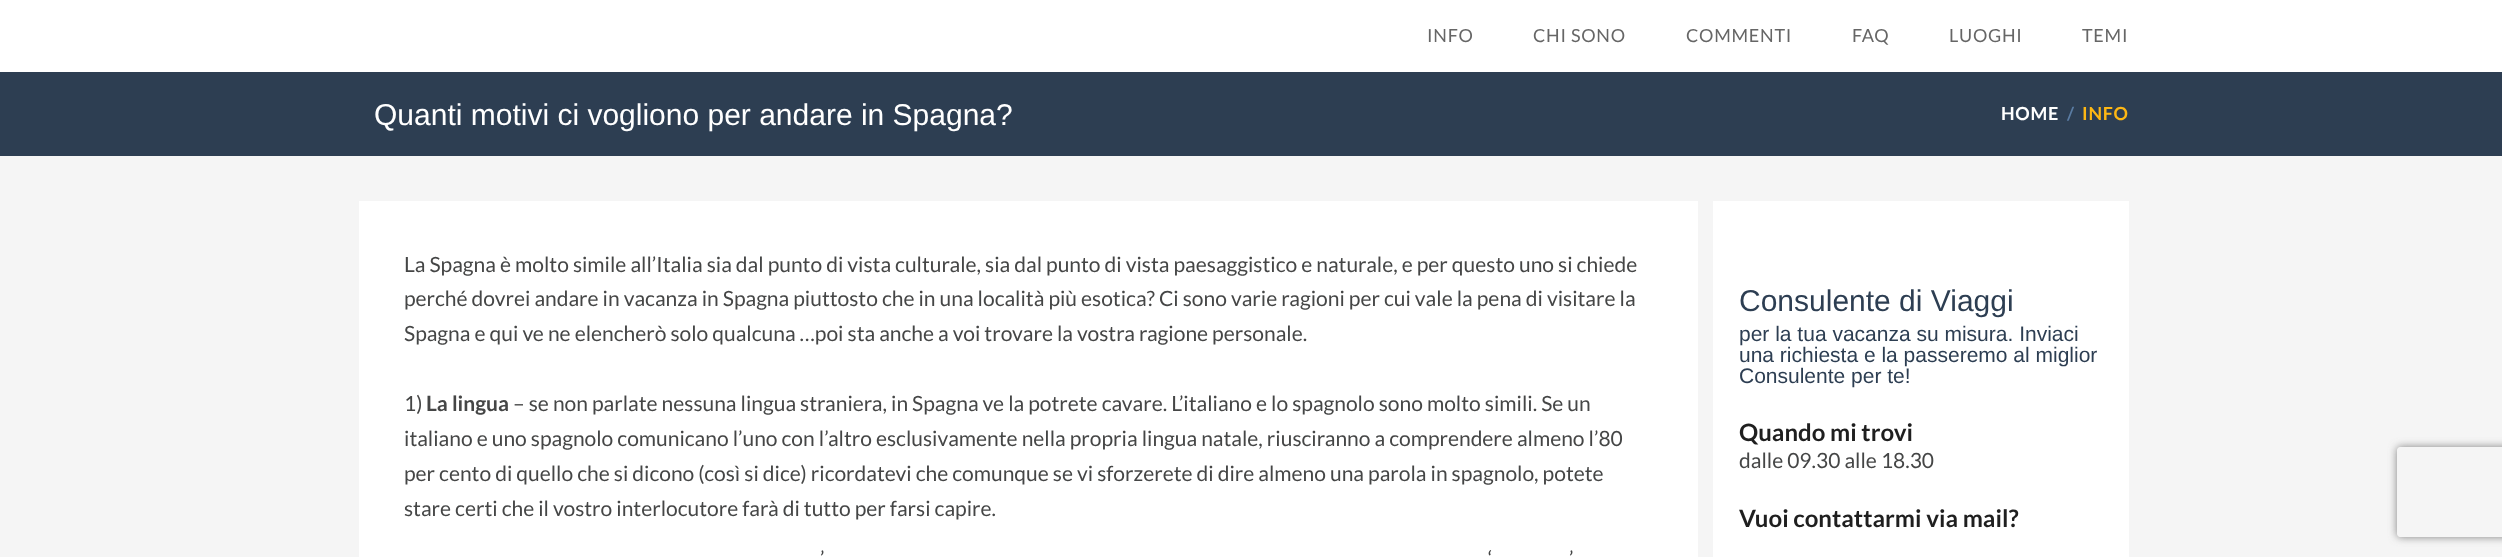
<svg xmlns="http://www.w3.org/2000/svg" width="2502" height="557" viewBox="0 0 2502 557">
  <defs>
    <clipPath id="clip1"><path d="M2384 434H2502V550H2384ZM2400 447H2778C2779.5 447 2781 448.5 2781 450V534C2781 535.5 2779.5 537 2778 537H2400C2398.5 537 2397 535.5 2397 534V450C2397 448.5 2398.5 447 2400 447Z" clip-rule="evenodd"/></clipPath>
    <filter id="blur1" x="-50%" y="-200%" width="200%" height="500%"><feGaussianBlur stdDeviation="4"/></filter>
  </defs>
  <rect width="100%" height="100%" fill="#ffffff"/>
  <text x="1427" y="42" font-family="Lato" font-size="18" letter-spacing="0.75" fill="#666666">INFO</text>
  <text x="1533" y="42" font-family="Lato" font-size="18" letter-spacing="0.75" fill="#666666">CHI SONO</text>
  <text x="1686" y="42" font-family="Lato" font-size="18" letter-spacing="0.75" fill="#666666">COMMENTI</text>
  <text x="1852" y="42" font-family="Lato" font-size="18" letter-spacing="0.75" fill="#666666">FAQ</text>
  <text x="1949" y="42" font-family="Lato" font-size="18" letter-spacing="0.75" fill="#666666">LUOGHI</text>
  <text x="2082" y="42" font-family="Lato" font-size="18" letter-spacing="0.75" fill="#666666">TEMI</text>
  <rect x="0" y="72" width="2502" height="84" fill="#2d3e52"/>
  <text x="374" y="125" font-family="Liberation Sans" font-size="30" fill="#ffffff">Quanti motivi ci vogliono per andare in Spagna?</text>
  <text x="2001" y="120" font-family="Lato" font-size="18" font-weight="bold" letter-spacing="0.75" fill="#ffffff">HOME</text>
  <text x="2067" y="120" font-family="Lato" font-size="18" font-weight="bold" letter-spacing="0.75" fill="#5a7ca3">/</text>
  <text x="2082" y="120" font-family="Lato" font-size="18" font-weight="bold" letter-spacing="0.75" fill="#fdb714">INFO</text>
  <rect x="0" y="156" width="2502" height="401" fill="#f5f5f5"/>
  <rect x="359" y="201" width="1339" height="356" fill="#ffffff"/>
  <text x="404" y="272" font-family="Lato" font-size="21" fill="#454646">La Spagna è molto simile all’Italia sia dal punto di vista culturale, sia dal punto di vista paesaggistico e naturale, e per questo uno si chiede</text>
  <text x="404" y="306" font-family="Lato" font-size="21" fill="#454646">perché dovrei andare in vacanza in Spagna piuttosto che in una località più esotica? Ci sono varie ragioni per cui vale la pena di visitare la</text>
  <text x="404" y="341" font-family="Lato" font-size="21" fill="#454646">Spagna e qui ve ne elencherò solo qualcuna …poi sta anche a voi trovare la vostra ragione personale.</text>
  <text x="404" y="411" font-family="Lato" font-size="21" fill="#454646">1)</text>
  <text x="426" y="411" font-family="Lato" font-size="21" font-weight="bold" fill="#454646">La lingua</text>
  <text x="513" y="411" font-family="Lato" font-size="21" fill="#454646">– se non parlate nessuna lingua straniera, in Spagna ve la potrete cavare. L’italiano e lo spagnolo sono molto simili. Se un</text>
  <text x="404" y="446" font-family="Lato" font-size="21" fill="#454646">italiano e uno spagnolo comunicano l’uno con l’altro esclusivamente nella propria lingua natale, riusciranno a comprendere almeno l’80</text>
  <text x="404" y="481" font-family="Lato" font-size="21" fill="#454646">per cento di quello che si dicono (così si dice) ricordatevi che comunque se vi sforzerete di dire almeno una parola in spagnolo, potete</text>
  <text x="404" y="516" font-family="Lato" font-size="21" fill="#454646">stare certi che il vostro interlocutore farà di tutto per farsi capire.</text>
  <text x="820" y="566" font-family="Lato" font-size="21" fill="#454646">’</text>
  <text x="1488" y="566" font-family="Lato" font-size="21" fill="#454646">‘</text>
  <text x="1569" y="566" font-family="Lato" font-size="21" fill="#454646">’</text>
  <rect x="1713" y="201" width="416" height="356" fill="#ffffff"/>
  <text x="1739" y="311" font-family="Liberation Sans" font-size="30" fill="#2d3e52">Consulente di Viaggi</text>
  <text x="1739" y="341" font-family="Liberation Sans" font-size="21" fill="#2d3e52">per la tua vacanza su misura. Inviaci</text>
  <text x="1739" y="362" font-family="Liberation Sans" font-size="21" fill="#2d3e52">una richiesta e la passeremo al miglior</text>
  <text x="1739" y="383" font-family="Liberation Sans" font-size="21" fill="#2d3e52">Consulente per te!</text>
  <text x="1739" y="441" font-family="Lato" font-size="24" font-weight="bold" fill="#1f1f1f">Quando mi trovi</text>
  <text x="1739" y="468" font-family="Lato" font-size="21" fill="#454646">dalle 09.30 alle 18.30</text>
  <text x="1739" y="527" font-family="Lato" font-size="24" font-weight="bold" fill="#1f1f1f">Vuoi contattarmi via mail?</text>
  <g clip-path="url(#clip1)">
    <rect x="2397" y="447" width="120" height="90" rx="3" fill="#808080" filter="url(#blur1)"/>
  </g>
</svg>
